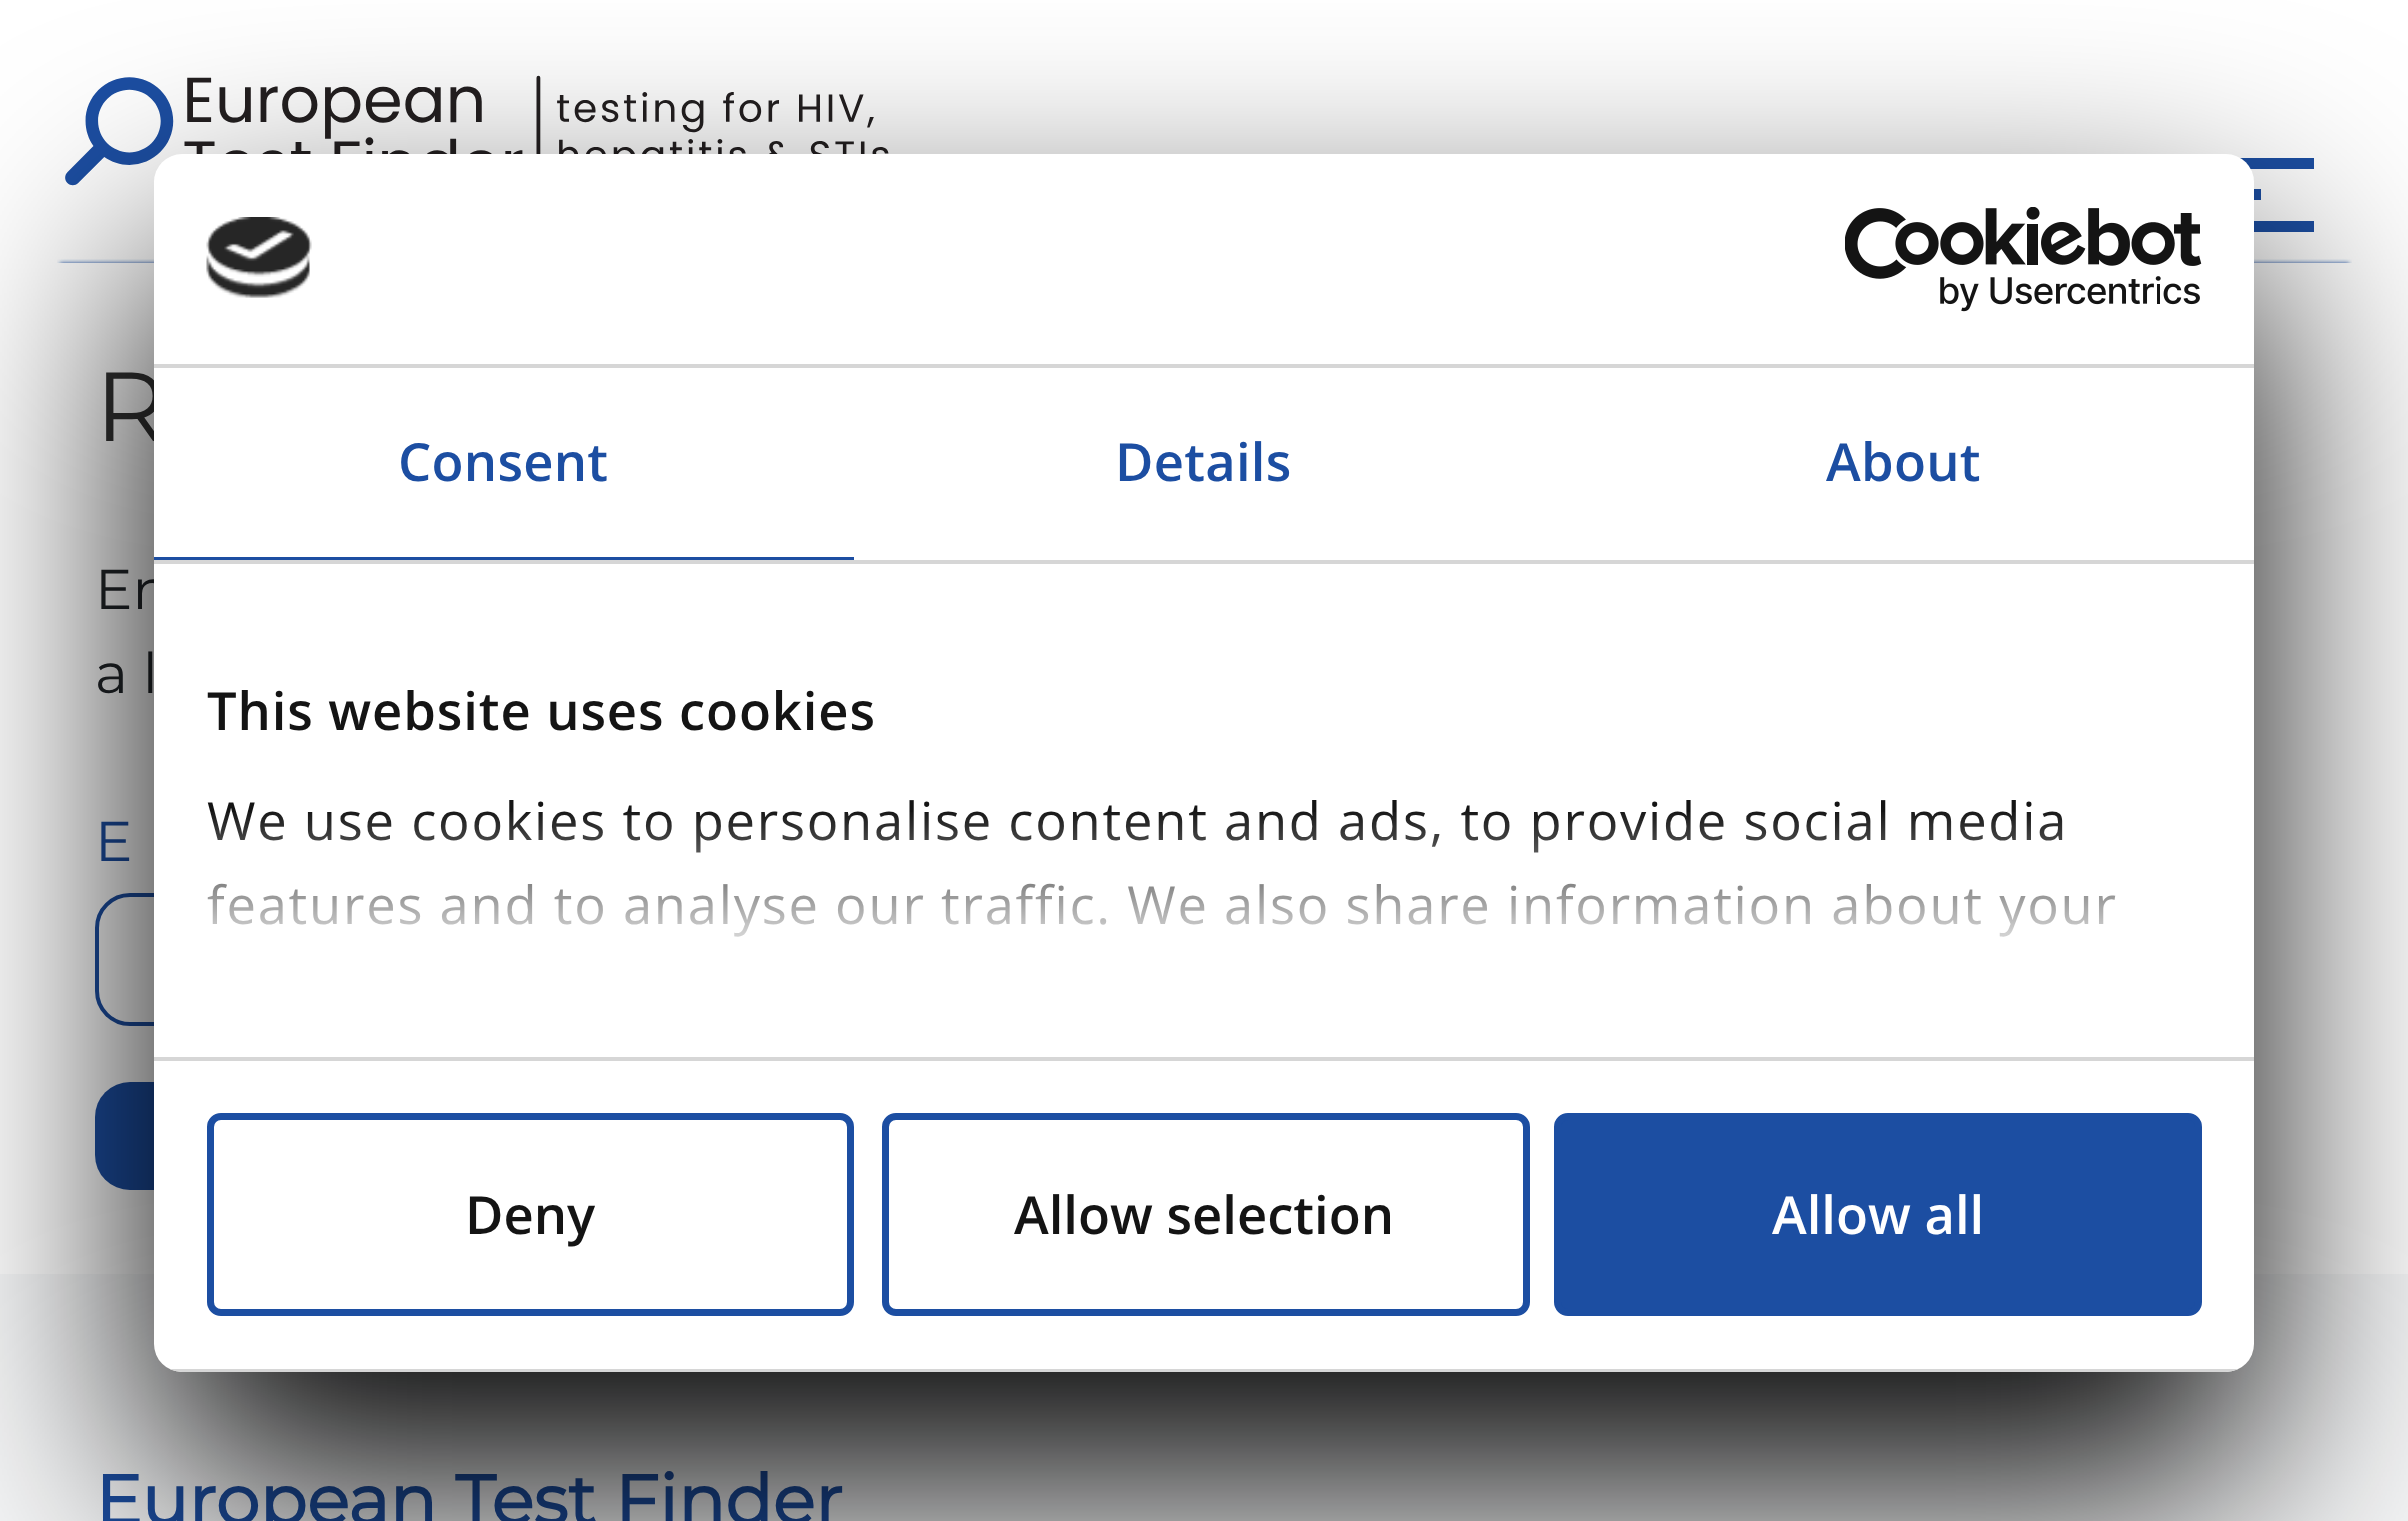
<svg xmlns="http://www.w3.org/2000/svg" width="2408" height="1521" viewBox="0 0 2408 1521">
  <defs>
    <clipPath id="clip1"><rect x="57" y="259" width="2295" height="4"/></clipPath>
    <filter id="blur1" x="-50%" y="-200%" width="200%" height="500%"><feGaussianBlur stdDeviation="2"/></filter>
    <filter id="blur2" x="-50%" y="-200%" width="200%" height="500%"><feGaussianBlur stdDeviation="119"/></filter>
    <linearGradient id="g1" gradientUnits="userSpaceOnUse" x1="1181" y1="1057" x2="1181" y2="809"><stop offset="0" stop-color="#ffffff"/><stop offset="0.5" stop-color="#ffffff" stop-opacity="0.8"/><stop offset="1" stop-color="#ffffff" stop-opacity="0"/></linearGradient>
    <clipPath id="clip2"><rect x="154" y="154" width="2100" height="1218" rx="28"/></clipPath>
  </defs>
  <rect width="100%" height="100%" fill="#ffffff"/>
  <image x="65" y="75" width="824" height="111" href="img1.png"/>
  <rect x="2240" y="158" width="74" height="11" fill="#1c4ea2"/>
  <rect x="2254" y="189" width="7" height="11" fill="#1c4ea2"/>
  <rect x="2254" y="221" width="60" height="11" fill="#1c4ea2"/>
  <g clip-path="url(#clip1)">
    <rect x="60" y="263" width="2289" height="913" fill="#1c4ea2" filter="url(#blur1)"/>
  </g>
  <text x="95" y="441" font-family="Montserrat" font-size="98" font-weight="100" fill="#323232">R</text>
  <text x="95" y="609" font-family="Montserrat" font-size="56" font-weight="100" fill="#212529">En</text>
  <text x="95" y="693" font-family="Montserrat" font-size="56" font-weight="100" fill="#212529">a l</text>
  <text x="95" y="861" font-family="Montserrat" font-size="56" font-weight="100" fill="#1c4ea2">E</text>
  <rect x="97" y="895" width="1256" height="129" rx="33" fill="none" stroke="#1c4ea2" stroke-width="4"/>
  <rect x="95" y="1082" width="1260" height="108" rx="35" fill="#1c4ea2"/>
  <rect x="0" y="1274" width="2408" height="247" fill="#f7f8f9"/>
  <text x="95" y="1525" font-family="Montserrat" font-size="70" font-weight="bold" fill="#1c4ea2">European Test Finder</text>
  <rect x="154" y="266" width="2100" height="1218" rx="28" fill="#000000" filter="url(#blur2)"/>
  <rect x="154" y="154" width="2100" height="1218" rx="28" fill="#ffffff"/>
  <rect x="154" y="364" width="2100" height="4" fill="#d6d6d6"/>
  <image x="206" y="217" width="106" height="81" href="img2.png"/>
  <image x="1845" y="207" width="357" height="105" href="img3.png"/>
  <rect x="154" y="560" width="2100" height="4" fill="#d6d6d6"/>
  <rect x="154" y="557" width="700" height="3" fill="#1c4ea2"/>
  <text x="398" y="481" font-family="Open Sans" font-size="52.5" font-weight="600" letter-spacing="0.25" fill="#1c4ea2">Consent</text>
  <text x="1115" y="481" font-family="Open Sans" font-size="52.5" font-weight="600" letter-spacing="0.25" fill="#1c4ea2">Details</text>
  <text x="1826" y="481" font-family="Open Sans" font-size="52.5" font-weight="600" letter-spacing="0.25" fill="#1c4ea2">About</text>
  <rect x="154" y="1057" width="2100" height="4" fill="#d6d6d6"/>
  <text x="207" y="730" font-family="Open Sans" font-size="52.5" font-weight="600" letter-spacing="0.9" fill="#141414">This website uses cookies</text>
  <text x="207" y="840" font-family="Open Sans" font-size="52.5" letter-spacing="1.75" fill="#141414">We use cookies to personalise content and ads, to provide social media</text>
  <text x="207" y="924" font-family="Open Sans" font-size="52.5" letter-spacing="1.75" fill="#141414">features and to analyse our traffic. We also share information about your</text>
  <rect x="207" y="812" width="1908" height="125" fill="url(#g1)"/>
  <g clip-path="url(#clip2)">
    <rect x="169" y="1369" width="2070" height="3" fill="#d6d6d6"/>
  </g>
  <rect x="210.5" y="1116.5" width="640" height="196" rx="10.5" fill="none" stroke="#1c4ea2" stroke-width="7"/>
  <text x="465" y="1234" font-family="Open Sans" font-size="52.5" font-weight="600" fill="#141414">Deny</text>
  <rect x="885.5" y="1116.5" width="641" height="196" rx="10.5" fill="none" stroke="#1c4ea2" stroke-width="7"/>
  <text x="1014" y="1234" font-family="Open Sans" font-size="52.5" font-weight="600" fill="#141414">Allow selection</text>
  <rect x="1557.5" y="1116.5" width="641" height="196" rx="10.5" fill="#1c4ea2" stroke="#1c4ea2" stroke-width="7"/>
  <text x="1772" y="1234" font-family="Open Sans" font-size="52.5" font-weight="600" fill="#ffffff">Allow all</text>
</svg>
